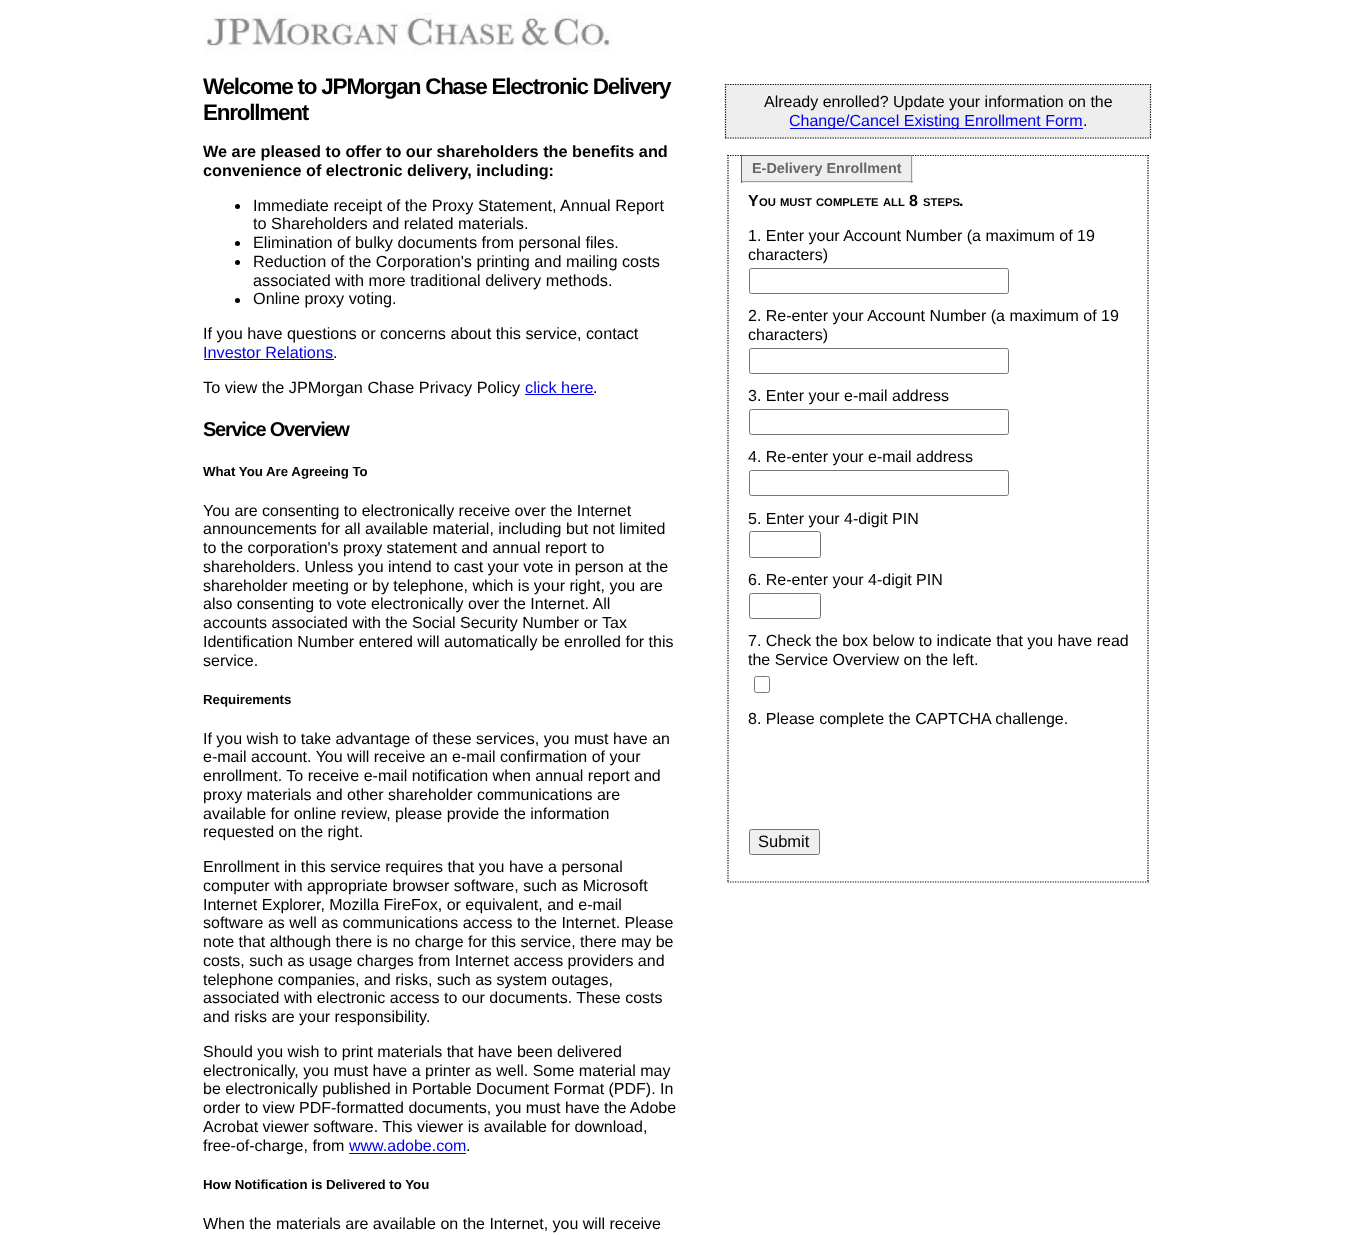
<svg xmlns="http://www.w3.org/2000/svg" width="1355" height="1235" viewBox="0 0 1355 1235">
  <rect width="100%" height="100%" fill="#ffffff"/>
  <image x="204" y="12" width="409" height="41" href="img1.png"/>
  <text x="203" y="94" font-family="Liberation Sans" font-size="22.5" font-weight="bold" letter-spacing="-1.25" fill="#000000">Welcome to JPMorgan Chase Electronic Delivery</text>
  <text x="203" y="120" font-family="Liberation Sans" font-size="22.5" font-weight="bold" letter-spacing="-1.25" fill="#000000">Enrollment</text>
  <text x="203" y="157" font-family="Liberation Sans" font-size="16.25" font-weight="bold" fill="#000000">We are pleased to offer to our shareholders the benefits and</text>
  <text x="203" y="176" font-family="Liberation Sans" font-size="16.25" font-weight="bold" fill="#000000">convenience of electronic delivery, including:</text>
  <circle cx="237.5" cy="206.5" r="2.5" fill="#000000"/>
  <text x="253" y="211" font-family="Liberation Sans" font-size="16.25" fill="#000000">Immediate receipt of the Proxy Statement, Annual Report</text>
  <text x="253" y="229" font-family="Liberation Sans" font-size="16.25" fill="#000000">to Shareholders and related materials.</text>
  <circle cx="237.5" cy="243.5" r="2.5" fill="#000000"/>
  <text x="253" y="248" font-family="Liberation Sans" font-size="16.25" fill="#000000">Elimination of bulky documents from personal files.</text>
  <circle cx="237.5" cy="262.5" r="2.5" fill="#000000"/>
  <text x="253" y="267" font-family="Liberation Sans" font-size="16.25" fill="#000000">Reduction of the Corporation's printing and mailing costs</text>
  <text x="253" y="286" font-family="Liberation Sans" font-size="16.25" fill="#000000">associated with more traditional delivery methods.</text>
  <circle cx="237.5" cy="300.5" r="2.5" fill="#000000"/>
  <text x="253" y="304" font-family="Liberation Sans" font-size="16.25" fill="#000000">Online proxy voting.</text>
  <text x="203" y="339" font-family="Liberation Sans" font-size="16.25" fill="#000000">If you have questions or concerns about this service, contact</text>
  <text x="203" y="358" font-family="Liberation Sans" font-size="16.25" fill="#0000ee">Investor Relations</text>
  <rect x="204" y="359" width="130" height="1" fill="#0000ee"/>
  <text x="333" y="358" font-family="Liberation Sans" font-size="16.25" fill="#000000">.</text>
  <text x="203" y="393" font-family="Liberation Sans" font-size="16.25" fill="#000000">To view the JPMorgan Chase Privacy Policy</text>
  <text x="525" y="393" font-family="Liberation Sans" font-size="16.25" fill="#0000ee">click here</text>
  <rect x="525" y="394" width="69" height="1" fill="#0000ee"/>
  <text x="593" y="393" font-family="Liberation Sans" font-size="16" fill="#000000">.</text>
  <text x="203" y="436" font-family="Liberation Sans" font-size="20" font-weight="bold" letter-spacing="-1.25" fill="#000000">Service Overview</text>
  <text x="203" y="476" font-family="Liberation Sans" font-size="13.25" font-weight="bold" fill="#000000">What You Are Agreeing To</text>
  <text x="203" y="516" font-family="Liberation Sans" font-size="16" fill="#000000">You are consenting to electronically receive over the Internet</text>
  <text x="203" y="534" font-family="Liberation Sans" font-size="16" fill="#000000">announcements for all available material, including but not limited</text>
  <text x="203" y="553" font-family="Liberation Sans" font-size="16" fill="#000000">to the corporation's proxy statement and annual report to</text>
  <text x="203" y="572" font-family="Liberation Sans" font-size="16" fill="#000000">shareholders. Unless you intend to cast your vote in person at the</text>
  <text x="203" y="591" font-family="Liberation Sans" font-size="16" fill="#000000">shareholder meeting or by telephone, which is your right, you are</text>
  <text x="203" y="609" font-family="Liberation Sans" font-size="16" fill="#000000">also consenting to vote electronically over the Internet. All</text>
  <text x="203" y="628" font-family="Liberation Sans" font-size="16" fill="#000000">accounts associated with the Social Security Number or Tax</text>
  <text x="203" y="647" font-family="Liberation Sans" font-size="16" fill="#000000">Identification Number entered will automatically be enrolled for this</text>
  <text x="203" y="666" font-family="Liberation Sans" font-size="16" fill="#000000">service.</text>
  <text x="203" y="704" font-family="Liberation Sans" font-size="13.25" font-weight="bold" fill="#000000">Requirements</text>
  <text x="203" y="744" font-family="Liberation Sans" font-size="16" fill="#000000">If you wish to take advantage of these services, you must have an</text>
  <text x="203" y="762" font-family="Liberation Sans" font-size="16" fill="#000000">e-mail account. You will receive an e-mail confirmation of your</text>
  <text x="203" y="781" font-family="Liberation Sans" font-size="16" fill="#000000">enrollment. To receive e-mail notification when annual report and</text>
  <text x="203" y="800" font-family="Liberation Sans" font-size="16" fill="#000000">proxy materials and other shareholder communications are</text>
  <text x="203" y="819" font-family="Liberation Sans" font-size="16" fill="#000000">available for online review, please provide the information</text>
  <text x="203" y="837" font-family="Liberation Sans" font-size="16" fill="#000000">requested on the right.</text>
  <text x="203" y="872" font-family="Liberation Sans" font-size="16" fill="#000000">Enrollment in this service requires that you have a personal</text>
  <text x="203" y="891" font-family="Liberation Sans" font-size="16" fill="#000000">computer with appropriate browser software, such as Microsoft</text>
  <text x="203" y="910" font-family="Liberation Sans" font-size="16" fill="#000000">Internet Explorer, Mozilla FireFox, or equivalent, and e-mail</text>
  <text x="203" y="928" font-family="Liberation Sans" font-size="16" fill="#000000">software as well as communications access to the Internet. Please</text>
  <text x="203" y="947" font-family="Liberation Sans" font-size="16" fill="#000000">note that although there is no charge for this service, there may be</text>
  <text x="203" y="966" font-family="Liberation Sans" font-size="16" fill="#000000">costs, such as usage charges from Internet access providers and</text>
  <text x="203" y="985" font-family="Liberation Sans" font-size="16" fill="#000000">telephone companies, and risks, such as system outages,</text>
  <text x="203" y="1003" font-family="Liberation Sans" font-size="16" fill="#000000">associated with electronic access to our documents. These costs</text>
  <text x="203" y="1022" font-family="Liberation Sans" font-size="16" fill="#000000">and risks are your responsibility.</text>
  <text x="203" y="1057" font-family="Liberation Sans" font-size="16" fill="#000000">Should you wish to print materials that have been delivered</text>
  <text x="203" y="1076" font-family="Liberation Sans" font-size="16" fill="#000000">electronically, you must have a printer as well. Some material may</text>
  <text x="203" y="1094" font-family="Liberation Sans" font-size="16" fill="#000000">be electronically published in Portable Document Format (PDF). In</text>
  <text x="203" y="1113" font-family="Liberation Sans" font-size="16" fill="#000000">order to view PDF-formatted documents, you must have the Adobe</text>
  <text x="203" y="1132" font-family="Liberation Sans" font-size="16" fill="#000000">Acrobat viewer software. This viewer is available for download,</text>
  <text x="203" y="1151" font-family="Liberation Sans" font-size="16" fill="#000000">free-of-charge, from</text>
  <text x="349" y="1151" font-family="Liberation Sans" font-size="16" fill="#0000ee">www.adobe.com</text>
  <rect x="349" y="1153" width="117" height="1" fill="#0000ee"/>
  <text x="466" y="1151" font-family="Liberation Sans" font-size="16" fill="#000000">.</text>
  <text x="203" y="1189" font-family="Liberation Sans" font-size="13.25" font-weight="bold" fill="#000000">How Notification is Delivered to You</text>
  <text x="203" y="1229" font-family="Liberation Sans" font-size="16" fill="#000000">When the materials are available on the Internet, you will receive</text>
  <rect x="725" y="84" width="426" height="55" fill="#eeeeee"/>
  <path d="M725 84.5H1151" fill="none" stroke="#000000" stroke-width="1.2" stroke-dasharray="1.25 1.25"/>
  <path d="M1150.5 84V139" fill="none" stroke="#000000" stroke-width="1.2" stroke-dasharray="1.25 1.25"/>
  <path d="M725 138H1151" fill="none" stroke="#000000" stroke-width="1.2" stroke-dasharray="1.25 1.25"/>
  <path d="M725.5 84V139" fill="none" stroke="#000000" stroke-width="1.2" stroke-dasharray="1.25 1.25"/>
  <text x="764" y="107" font-family="Liberation Sans" font-size="16" fill="#000000">Already enrolled? Update your information on the</text>
  <rect x="790" y="128" width="293" height="1" fill="#0000ee"/>
  <text x="789" y="126" font-family="Liberation Sans" font-size="16" fill="#0000ee">Change/Cancel Existing Enrollment Form</text>
  <text x="1083" y="126" font-family="Liberation Sans" font-size="16" fill="#000000">.</text>
  <path d="M727.5 155.5H1149" fill="none" stroke="#000000" stroke-width="1.2" stroke-dasharray="1.25 1.25"/>
  <path d="M1148 155V882.5" fill="none" stroke="#000000" stroke-width="1.2" stroke-dasharray="1.25 1.25"/>
  <path d="M727.5 882H1149" fill="none" stroke="#000000" stroke-width="1.2" stroke-dasharray="1.25 1.25"/>
  <path d="M728 155V882.5" fill="none" stroke="#000000" stroke-width="1.2" stroke-dasharray="1.25 1.25"/>
  <rect x="742" y="156" width="171" height="27" fill="#eeeeee"/>
  <rect x="741" y="155" width="172" height="1" fill="#666666"/>
  <rect x="911" y="155" width="1" height="28" fill="#999999"/>
  <rect x="741" y="181" width="172" height="1" fill="#999999"/>
  <rect x="741" y="155" width="1" height="28" fill="#666666"/>
  <text x="752" y="173" font-family="Liberation Sans" font-size="14.4" font-weight="bold" fill="#666666">E-Delivery Enrollment</text>
  <text x="748" y="206" font-family="Liberation Sans" font-size="16" font-weight="bold" fill="#000000">Y</text>
  <text x="759" y="206" font-family="Liberation Sans" font-size="11.25" font-weight="bold" fill="#000000">OU</text>
  <text x="780" y="206" font-family="Liberation Sans" font-size="11.25" font-weight="bold" fill="#000000">MUST</text>
  <text x="816" y="206" font-family="Liberation Sans" font-size="11.25" font-weight="bold" fill="#000000">COMPLETE</text>
  <text x="883" y="206" font-family="Liberation Sans" font-size="11.25" font-weight="bold" fill="#000000">ALL</text>
  <text x="909" y="206" font-family="Liberation Sans" font-size="16" font-weight="bold" fill="#000000">8</text>
  <text x="923" y="206" font-family="Liberation Sans" font-size="11.25" font-weight="bold" fill="#000000">STEPS</text>
  <text x="959" y="206" font-family="Liberation Sans" font-size="16" font-weight="bold" fill="#000000">.</text>
  <text x="748" y="241" font-family="Liberation Sans" font-size="16" fill="#000000">1. Enter your Account Number (a maximum of 19</text>
  <text x="748" y="260" font-family="Liberation Sans" font-size="16" fill="#000000">characters)</text>
  <rect x="749.5" y="268.5" width="259" height="25" rx="2" fill="none" stroke="#767676"/>
  <text x="748" y="321" font-family="Liberation Sans" font-size="16" fill="#000000">2. Re-enter your Account Number (a maximum of 19</text>
  <text x="748" y="340" font-family="Liberation Sans" font-size="16" fill="#000000">characters)</text>
  <rect x="749.5" y="348.5" width="259" height="25" rx="2" fill="none" stroke="#767676"/>
  <text x="748" y="401" font-family="Liberation Sans" font-size="16" fill="#000000">3. Enter your e-mail address</text>
  <rect x="749.5" y="409.5" width="259" height="25" rx="2" fill="none" stroke="#767676"/>
  <text x="748" y="462" font-family="Liberation Sans" font-size="16" fill="#000000">4. Re-enter your e-mail address</text>
  <rect x="749.5" y="470.5" width="259" height="25" rx="2" fill="none" stroke="#767676"/>
  <text x="748" y="524" font-family="Liberation Sans" font-size="16" fill="#000000">5. Enter your 4-digit PIN</text>
  <rect x="749.5" y="531.5" width="71" height="26" rx="2" fill="none" stroke="#767676"/>
  <text x="748" y="585" font-family="Liberation Sans" font-size="16" fill="#000000">6. Re-enter your 4-digit PIN</text>
  <rect x="749.5" y="593.5" width="71" height="25" rx="2" fill="none" stroke="#767676"/>
  <text x="748" y="646" font-family="Liberation Sans" font-size="16" fill="#000000">7. Check the box below to indicate that you have read</text>
  <text x="748" y="665" font-family="Liberation Sans" font-size="16" fill="#000000">the Service Overview on the left.</text>
  <rect x="754.5" y="676.5" width="15" height="16" rx="2" fill="none" stroke="#767676"/>
  <text x="748" y="724" font-family="Liberation Sans" font-size="16" fill="#000000">8. Please complete the CAPTCHA challenge.</text>
  <rect x="749.5" y="829.5" width="70" height="25" rx="2" fill="#efefef" stroke="#767676"/>
  <text x="758" y="847" font-family="Liberation Sans" font-size="16.5" fill="#000000">Submit</text>
</svg>
